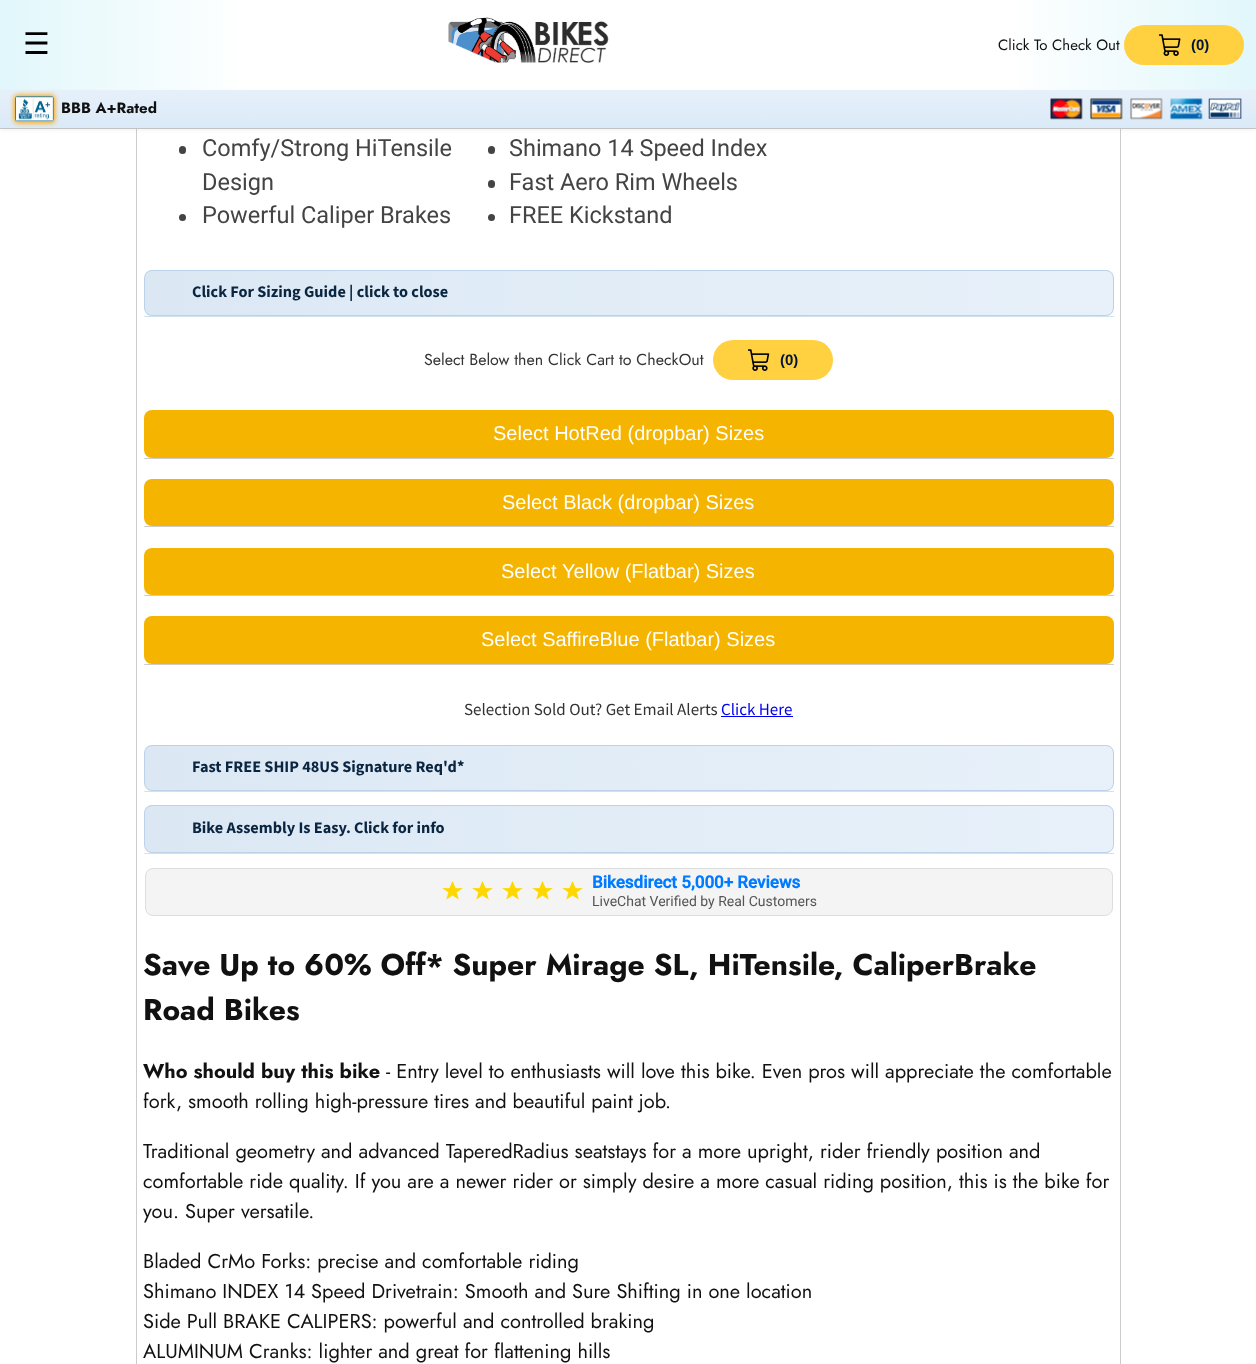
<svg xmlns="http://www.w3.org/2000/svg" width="1256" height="1364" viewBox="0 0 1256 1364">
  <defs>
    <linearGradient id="g1" gradientUnits="userSpaceOnUse" x1="0" y1="45" x2="1256" y2="45"><stop offset="0" stop-color="#e1f7fb"/><stop offset="0.2" stop-color="#ffffff"/><stop offset="0.8" stop-color="#ffffff"/><stop offset="1" stop-color="#e1f7fb"/></linearGradient>
    <filter id="blur1" x="-50%" y="-200%" width="200%" height="500%"><feGaussianBlur stdDeviation="2"/></filter>
    <linearGradient id="g2" gradientUnits="userSpaceOnUse" x1="628" y1="90" x2="628" y2="128"><stop offset="0" stop-color="#e6f0fa"/><stop offset="1" stop-color="#dbeaf8"/></linearGradient>
    <filter id="blur2" x="-50%" y="-200%" width="200%" height="500%"><feGaussianBlur stdDeviation="2.5"/></filter>
    <clipPath id="clip1"><rect x="144" y="270" width="970" height="46" rx="8"/></clipPath>
    <linearGradient id="g3" gradientUnits="userSpaceOnUse" x1="145" y1="293" x2="1113" y2="293"><stop offset="0" stop-color="#dbe8f4"/><stop offset="1" stop-color="#e8f1fa"/></linearGradient>
    <clipPath id="clip2"><rect x="144" y="745" width="970" height="46" rx="8"/></clipPath>
    <linearGradient id="g4" gradientUnits="userSpaceOnUse" x1="145" y1="768" x2="1113" y2="768"><stop offset="0" stop-color="#dbe8f4"/><stop offset="1" stop-color="#e8f1fa"/></linearGradient>
    <clipPath id="clip3"><rect x="144" y="805" width="970" height="48" rx="8"/></clipPath>
    <linearGradient id="g5" gradientUnits="userSpaceOnUse" x1="145" y1="829" x2="1113" y2="829"><stop offset="0" stop-color="#dbe8f4"/><stop offset="1" stop-color="#e8f1fa"/></linearGradient>
  </defs>
  <rect width="100%" height="100%" fill="#ffffff"/>
  <rect x="136.5" y="-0.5" width="984" height="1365" fill="none" stroke="#cccccc"/>
  <rect x="0" y="128" width="1256" height="1" fill="#cccccc"/>
  <rect x="0" y="0" width="1256" height="90" fill="url(#g1)"/>
  <text x="23" y="54" font-family="DejaVu Sans" font-size="30" fill="#000000">☰</text>
  <image x="448" y="17" width="161" height="46" href="img1.png"/>
  <text x="998" y="50" font-family="Jost" font-size="15" fill="#111111">Click To Check Out</text>
  <rect x="1124" y="25" width="120" height="40" rx="20" fill="#ffd140"/>
  <image x="1159" y="34" width="22" height="22" href="img2.png"/>
  <text x="1191" y="50" font-family="Liberation Sans" font-size="15" font-weight="bold" fill="#001435">(0)</text>
  <rect x="0" y="93" width="1256" height="37" fill="#000000" fill-opacity="0.06" filter="url(#blur1)"/>
  <rect x="0" y="90" width="1256" height="38" fill="url(#g2)"/>
  <rect x="14" y="95" width="41" height="28" rx="4" fill="#ffa500" filter="url(#blur2)"/>
  <image x="15" y="96" width="39" height="26" href="img3.png"/>
  <text x="61" y="113" font-family="Jost" font-size="15" font-weight="bold" fill="#111111">BBB A+Rated</text>
  <image x="1050" y="98" width="33" height="22" href="img4.png"/>
  <image x="1090" y="98" width="33" height="22" href="img5.png"/>
  <image x="1130" y="98" width="33" height="22" href="img6.png"/>
  <image x="1170" y="98" width="33" height="22" href="img7.png"/>
  <image x="1208" y="98" width="34" height="21" href="img8.png"/>
  <rect x="179" y="146" width="7" height="8" rx="3.5" fill="#444444"/>
  <text x="202" y="156" font-family="Roboto" font-size="23.5" fill="#444444">Comfy/Strong HiTensile</text>
  <text x="202" y="190" font-family="Roboto" font-size="23.5" fill="#444444">Design</text>
  <circle cx="182.5" cy="217.5" r="3.5" fill="#444444"/>
  <text x="202" y="223" font-family="Roboto" font-size="23.5" fill="#444444">Powerful Caliper Brakes</text>
  <rect x="488" y="146" width="7" height="8" rx="3.5" fill="#444444"/>
  <text x="509" y="156" font-family="Roboto" font-size="23.5" fill="#444444">Shimano 14 Speed Index</text>
  <rect x="488" y="180" width="7" height="8" rx="3.5" fill="#444444"/>
  <text x="509" y="190" font-family="Roboto" font-size="23.5" fill="#444444">Fast Aero Rim Wheels</text>
  <circle cx="491.5" cy="217.5" r="3.5" fill="#444444"/>
  <text x="509" y="223" font-family="Roboto" font-size="23.5" fill="#444444">FREE Kickstand</text>
  <g clip-path="url(#clip1)">
    <rect x="145" y="270" width="968" height="46" fill="url(#g3)"/>
  </g>
  <rect x="144.5" y="270.5" width="969" height="45" rx="7.5" fill="none" stroke="#bcd2e8"/>
  <text x="192" y="297" font-family="Source Sans Pro" font-size="16.25" font-weight="bold" fill="#0a2540">Click For Sizing Guide | click to close</text>
  <rect x="145" y="316" width="969" height="1" fill="#d0e1ef"/>
  <circle cx="144.5" cy="316.5" r="0.5" fill="#d0e1ef"/>
  <text x="424" y="365" font-family="Jost" font-size="16" fill="#333333">Select Below then Click Cart to CheckOut</text>
  <rect x="713" y="340" width="120" height="40" rx="20" fill="#ffd140"/>
  <image x="748" y="349" width="22" height="22" href="img9.png"/>
  <text x="780" y="365" font-family="Liberation Sans" font-size="15" font-weight="bold" fill="#001435">(0)</text>
  <rect x="144" y="410" width="970" height="48" rx="8" fill="#f4b400"/>
  <text x="493" y="440" font-family="Liberation Sans" font-size="20" fill="#ffffff">Select HotRed (dropbar) Sizes</text>
  <rect x="145" y="458" width="969" height="1" fill="#cccccc"/>
  <circle cx="144.5" cy="458.5" r="0.5" fill="#cccccc"/>
  <rect x="144" y="479" width="970" height="47" rx="8" fill="#f4b400"/>
  <text x="502" y="509" font-family="Liberation Sans" font-size="20" fill="#ffffff">Select Black (dropbar) Sizes</text>
  <rect x="145" y="526" width="969" height="1" fill="#cccccc"/>
  <circle cx="144.5" cy="526.5" r="0.5" fill="#cccccc"/>
  <rect x="144" y="548" width="970" height="47" rx="8" fill="#f4b400"/>
  <text x="501" y="578" font-family="Liberation Sans" font-size="20" fill="#ffffff">Select</text>
  <text x="562" y="578" font-family="Liberation Sans" font-size="20" fill="#ffffff">Yellow (Flatbar) Sizes</text>
  <rect x="145" y="595" width="969" height="1" fill="#cccccc"/>
  <circle cx="144.5" cy="595.5" r="0.5" fill="#cccccc"/>
  <rect x="144" y="616" width="970" height="48" rx="8" fill="#f4b400"/>
  <text x="481" y="646" font-family="Liberation Sans" font-size="20" fill="#ffffff">Select SaffireBlue (Flatbar) Sizes</text>
  <rect x="145" y="664" width="969" height="1" fill="#cccccc"/>
  <circle cx="144.5" cy="664.5" r="0.5" fill="#cccccc"/>
  <text x="464" y="715" font-family="Source Sans Pro" font-size="17" fill="#333333">Selection Sold Out? Get Email Alerts</text>
  <text x="721" y="715" font-family="Source Sans Pro" font-size="17" fill="#0000ee">Click Here</text>
  <rect x="721" y="716" width="72" height="1" fill="#0000ee"/>
  <g clip-path="url(#clip2)">
    <rect x="145" y="745" width="968" height="46" fill="url(#g4)"/>
  </g>
  <rect x="144.5" y="745.5" width="969" height="45" rx="7.5" fill="none" stroke="#bcd2e8"/>
  <text x="192" y="772" font-family="Source Sans Pro" font-size="16.25" font-weight="bold" fill="#0a2540">Fast FREE SHIP 48US Signature Req'd*</text>
  <rect x="145" y="791" width="969" height="1" fill="#d0e1ef"/>
  <circle cx="144.5" cy="791.5" r="0.5" fill="#d0e1ef"/>
  <g clip-path="url(#clip3)">
    <rect x="145" y="805" width="968" height="48" fill="url(#g5)"/>
  </g>
  <rect x="144.5" y="805.5" width="969" height="47" rx="7.5" fill="none" stroke="#bcd2e8"/>
  <text x="192" y="833" font-family="Source Sans Pro" font-size="16.25" font-weight="bold" fill="#0a2540">Bike Assembly Is Easy. Click for info</text>
  <rect x="145" y="853" width="969" height="1" fill="#d0e1ef"/>
  <circle cx="144.5" cy="853.5" r="0.5" fill="#d0e1ef"/>
  <rect x="145.5" y="868.5" width="967" height="47" rx="7.5" fill="#f4f4f4" stroke="#dddddd"/>
  <image x="442" y="881" width="21" height="19" href="img10.png"/>
  <image x="472" y="881" width="21" height="19" href="img10.png"/>
  <image x="502" y="881" width="21" height="19" href="img10.png"/>
  <image x="532" y="881" width="21" height="19" href="img10.png"/>
  <image x="562" y="881" width="21" height="19" href="img10.png"/>
  <text x="592" y="888" font-family="Roboto" font-size="17" font-weight="bold" fill="#007bff">Bikesdirect 5,000+ Reviews</text>
  <text x="592" y="906" font-family="Roboto" font-size="14" fill="#555555">LiveChat Verified by Real Customers</text>
  <text x="143" y="975" font-family="Jost" font-size="30" font-weight="bold" fill="#111111">Save Up to 60% Off* Super Mirage SL, HiTensile, CaliperBrake</text>
  <text x="143" y="1020" font-family="Jost" font-size="30" font-weight="bold" fill="#111111">Road Bikes</text>
  <text x="143" y="1078" font-family="Jost" font-size="20" font-weight="bold" fill="#111111">Who should buy this bike</text>
  <text x="386" y="1078" font-family="Jost" font-size="20" fill="#111111">- Entry level to enthusiasts will love this bike. Even pros will appreciate the comfortable</text>
  <text x="143" y="1108" font-family="Jost" font-size="20" fill="#111111">fork, smooth rolling high-pressure tires and beautiful paint job.</text>
  <text x="143" y="1158" font-family="Jost" font-size="20" fill="#111111">Traditional geometry and advanced TaperedRadius seatstays for a more upright, rider friendly position and</text>
  <text x="143" y="1188" font-family="Jost" font-size="20" fill="#111111">comfortable ride quality. If you are a newer rider or simply desire a more casual riding position, this is the bike for</text>
  <text x="143" y="1218" font-family="Jost" font-size="20" fill="#111111">you. Super versatile.</text>
  <text x="143" y="1268" font-family="Jost" font-size="20" fill="#111111">Bladed CrMo Forks: precise and comfortable riding</text>
  <text x="143" y="1298" font-family="Jost" font-size="20" fill="#111111">Shimano INDEX 14 Speed Drivetrain: Smooth and Sure Shifting in one location</text>
  <text x="143" y="1328" font-family="Jost" font-size="20" fill="#111111">Side Pull BRAKE CALIPERS: powerful and controlled braking</text>
  <text x="143" y="1358" font-family="Jost" font-size="20" fill="#111111">ALUMINUM Cranks: lighter and great for flattening hills</text>
</svg>
